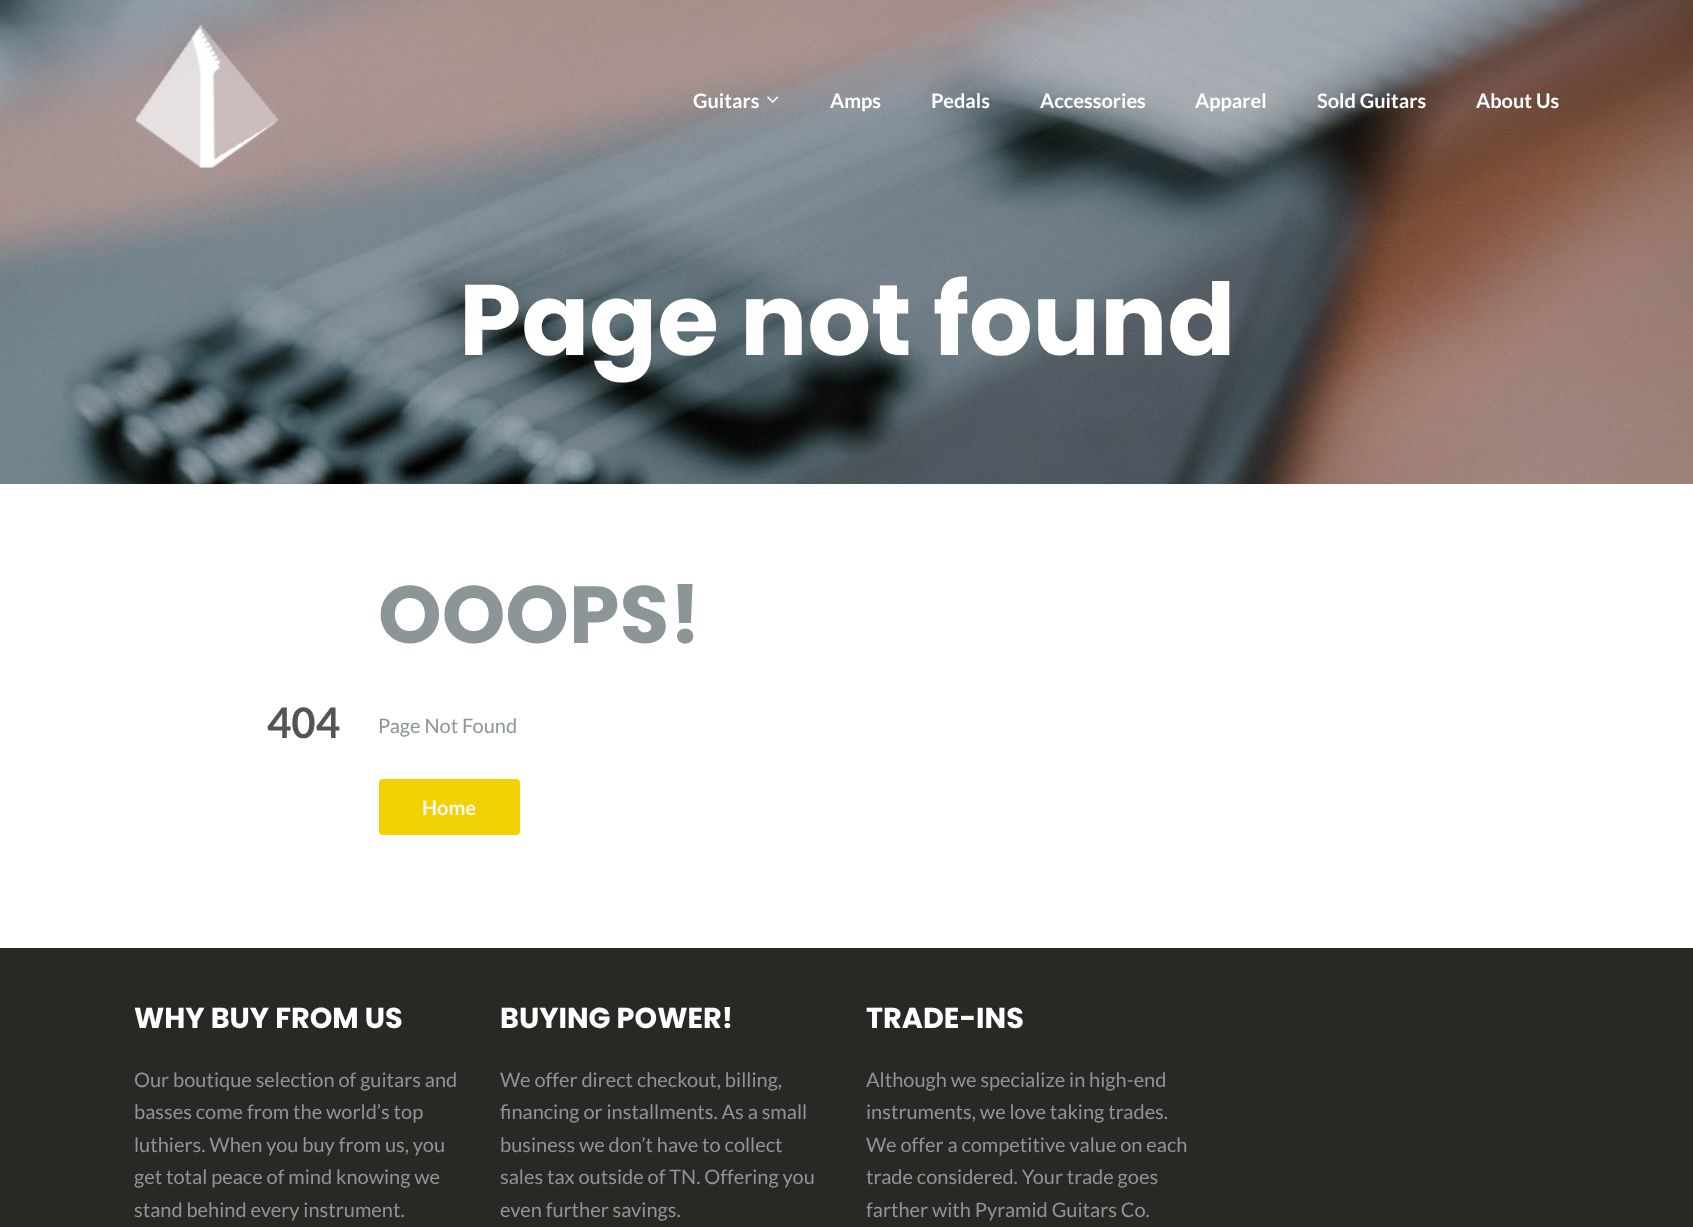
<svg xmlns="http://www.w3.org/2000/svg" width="1693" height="1227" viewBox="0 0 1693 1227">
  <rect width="100%" height="100%" fill="#ffffff"/>
  <image x="0" y="0" width="1693" height="484" href="img1.png"/>
  <image x="135" y="25" width="144" height="143" href="img2.png"/>
  <text x="693" y="108" font-family="Lato" font-size="20" font-weight="bold" fill="#ffffff">Guitars</text>
  <image x="767" y="96" width="12" height="7" href="img3.png"/>
  <text x="830" y="108" font-family="Lato" font-size="20" font-weight="bold" fill="#ffffff">Amps</text>
  <text x="931" y="108" font-family="Lato" font-size="20" font-weight="bold" fill="#ffffff">Pedals</text>
  <text x="1040" y="108" font-family="Lato" font-size="20" font-weight="bold" fill="#ffffff">Accessories</text>
  <text x="1195" y="108" font-family="Lato" font-size="20" font-weight="bold" fill="#ffffff">Apparel</text>
  <text x="1317" y="108" font-family="Lato" font-size="20" font-weight="bold" fill="#ffffff">Sold Guitars</text>
  <text x="1476" y="108" font-family="Lato" font-size="20" font-weight="bold" fill="#ffffff">About Us</text>
  <text x="459" y="355" font-family="Poppins" font-size="100" font-weight="bold" fill="#ffffff">Page not found</text>
  <text x="267" y="738" font-family="Lato" font-size="42" font-weight="bold" fill="#545454">404</text>
  <text x="378" y="643" font-family="Poppins" font-size="81" font-weight="bold" fill="#8c9597">OOOPS!</text>
  <text x="378" y="733" font-family="Lato" font-size="20" fill="#8c9597">Page Not Found</text>
  <rect x="379" y="779" width="141" height="56" rx="4" fill="#f1d204"/>
  <text x="422" y="815" font-family="Lato" font-size="20" font-weight="bold" fill="#f7f7f7">Home</text>
  <rect x="0" y="948" width="1693" height="279" fill="#292825"/>
  <text x="134" y="1028" font-family="Poppins" font-size="28.75" font-weight="bold" fill="#ffffff">WHY BUY FROM US</text>
  <text x="134" y="1087" font-family="Lato" font-size="20" fill="#8c9597">Our boutique selection of guitars and</text>
  <text x="134" y="1119" font-family="Lato" font-size="20" fill="#8c9597">basses come from the world’s top</text>
  <text x="134" y="1152" font-family="Lato" font-size="20" fill="#8c9597">luthiers. When you buy from us, you</text>
  <text x="134" y="1184" font-family="Lato" font-size="20" fill="#8c9597">get total peace of mind knowing we</text>
  <text x="134" y="1217" font-family="Lato" font-size="20" fill="#8c9597">stand behind every instrument.</text>
  <text x="500" y="1028" font-family="Poppins" font-size="28.75" font-weight="bold" fill="#ffffff">BUYING POWER!</text>
  <text x="500" y="1087" font-family="Lato" font-size="20" fill="#8c9597">We offer direct checkout, billing,</text>
  <text x="500" y="1119" font-family="Lato" font-size="20" fill="#8c9597">financing or installments. As a small</text>
  <text x="500" y="1152" font-family="Lato" font-size="20" fill="#8c9597">business we don’t have to collect</text>
  <text x="500" y="1184" font-family="Lato" font-size="20" fill="#8c9597">sales tax outside of TN. Offering you</text>
  <text x="500" y="1217" font-family="Lato" font-size="20" fill="#8c9597">even further savings.</text>
  <text x="866" y="1028" font-family="Poppins" font-size="28.75" font-weight="bold" fill="#ffffff">TRADE-INS</text>
  <text x="866" y="1087" font-family="Lato" font-size="20" fill="#8c9597">Although we specialize in high-end</text>
  <text x="866" y="1119" font-family="Lato" font-size="20" fill="#8c9597">instruments, we love taking trades.</text>
  <text x="866" y="1152" font-family="Lato" font-size="20" fill="#8c9597">We offer a competitive value on each</text>
  <text x="866" y="1184" font-family="Lato" font-size="20" fill="#8c9597">trade considered. Your trade goes</text>
  <text x="866" y="1217" font-family="Lato" font-size="20" fill="#8c9597">farther with Pyramid Guitars Co.</text>
</svg>
